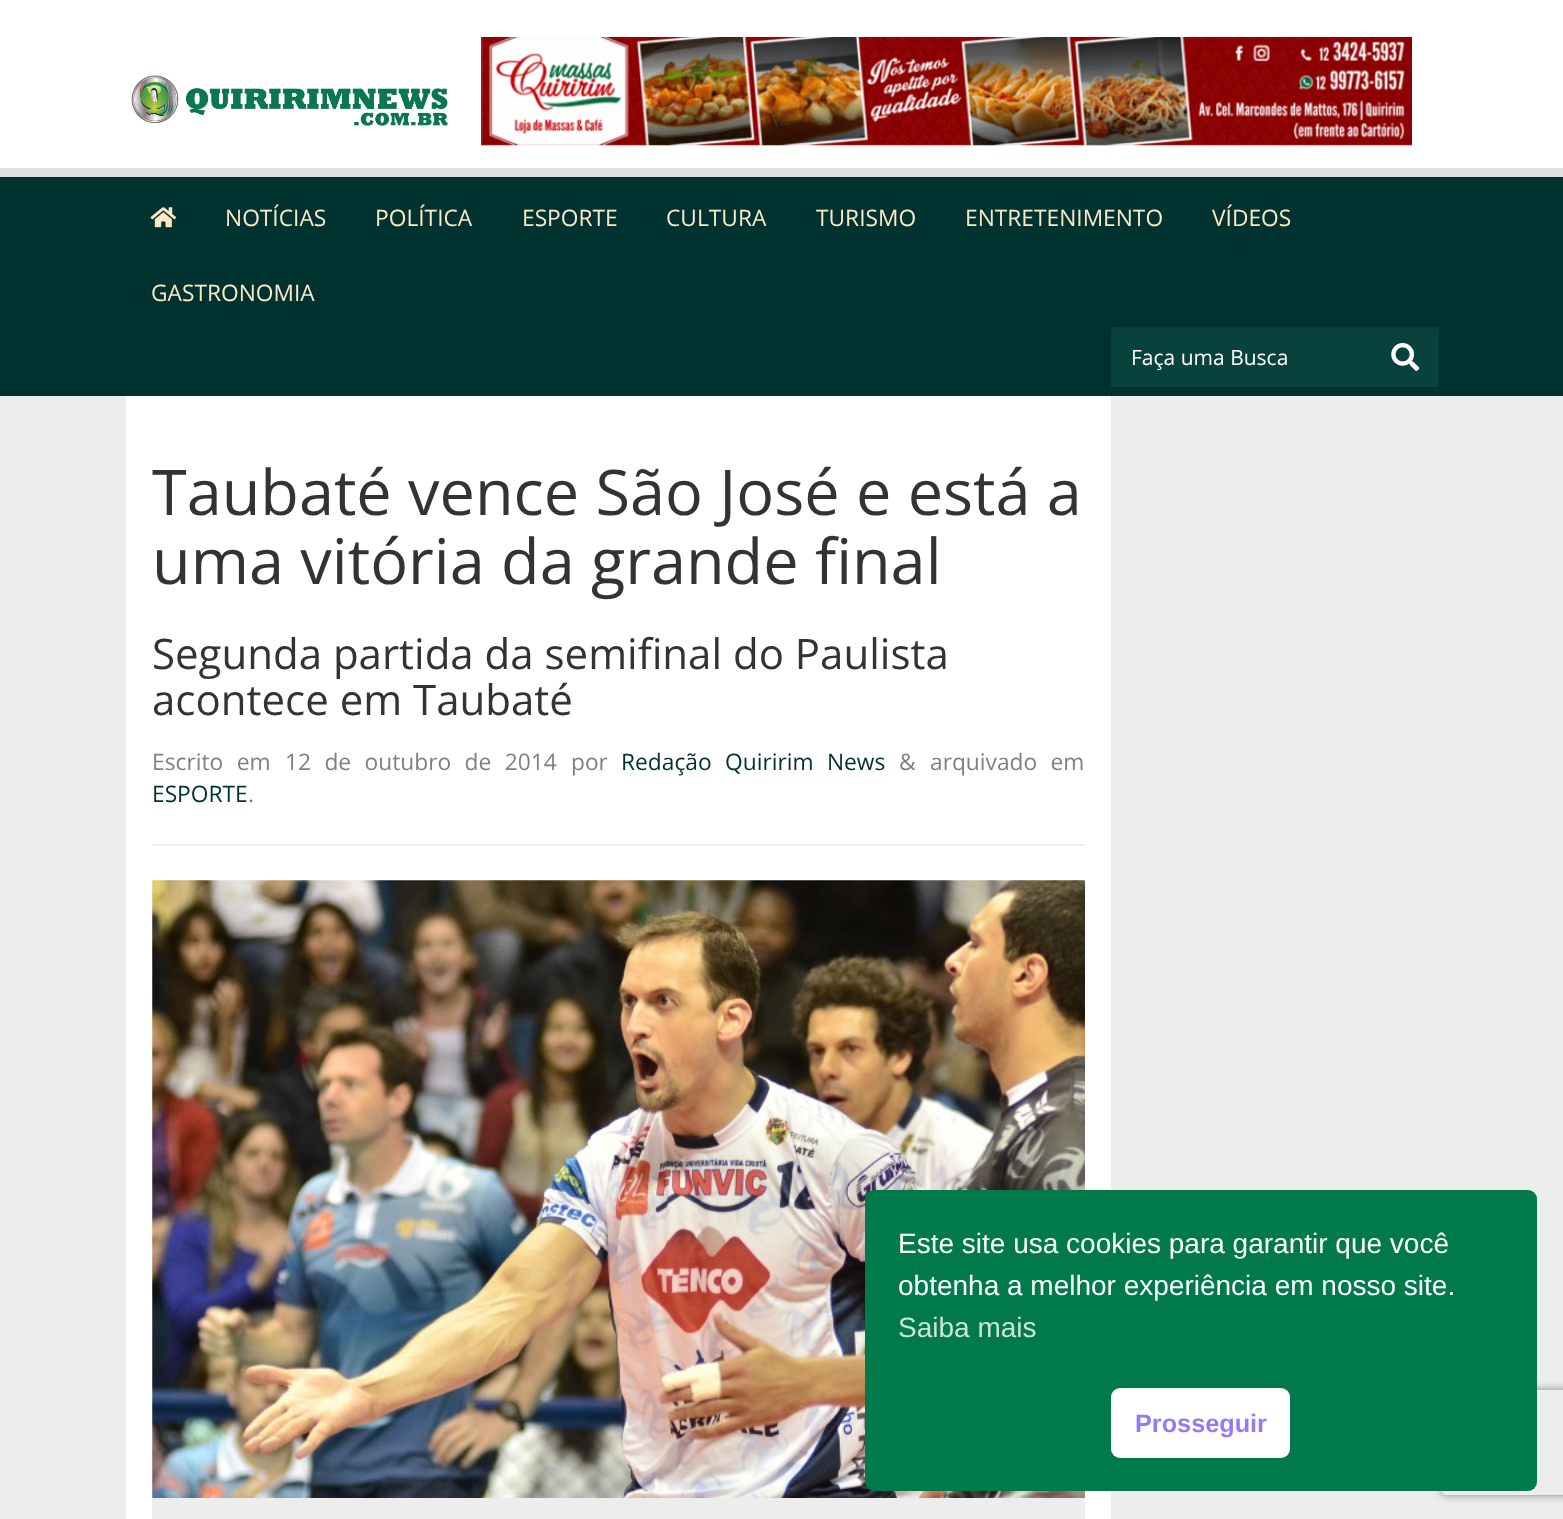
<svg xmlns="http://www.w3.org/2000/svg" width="1563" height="1519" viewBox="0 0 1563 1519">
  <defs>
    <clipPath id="clip1"><path d="M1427 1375H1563V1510H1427ZM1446 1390H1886C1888 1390 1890 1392 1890 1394V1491C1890 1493 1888 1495 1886 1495H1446C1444 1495 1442 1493 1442 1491V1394C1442 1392 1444 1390 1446 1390Z" clip-rule="evenodd"/></clipPath>
    <filter id="blur1" x="-50%" y="-200%" width="200%" height="500%"><feGaussianBlur stdDeviation="4.5"/></filter>
  </defs>
  <rect width="100%" height="100%" fill="#ededed"/>
  <rect x="0" y="0" width="1563" height="168" fill="#ffffff"/>
  <image x="131" y="75" width="317" height="51" href="img1.png"/>
  <image x="481" y="37" width="931" height="109" href="img2.png"/>
  <rect x="0" y="177" width="1563" height="219" fill="#00332f"/>
  <rect x="0" y="168" width="1563" height="9" fill="#e0e0e0"/>
  <image x="150" y="207" width="27" height="21" href="img3.png"/>
  <text x="225" y="226" font-family="Open Sans" font-size="22.75" fill="#fde7c9">NOTÍCIAS</text>
  <text x="375" y="226" font-family="Open Sans" font-size="22.75" fill="#fde7c9">POLÍTICA</text>
  <text x="522" y="226" font-family="Open Sans" font-size="22.75" fill="#fde7c9">ESPORTE</text>
  <text x="666" y="226" font-family="Open Sans" font-size="22.75" fill="#fde7c9">CULTURA</text>
  <text x="816" y="226" font-family="Open Sans" font-size="22.75" fill="#fde7c9">TURISMO</text>
  <text x="965" y="226" font-family="Open Sans" font-size="22.75" fill="#fde7c9">ENTRETENIMENTO</text>
  <text x="1212" y="226" font-family="Open Sans" font-size="22.75" fill="#fde7c9">VÍDEOS</text>
  <text x="151" y="301" font-family="Open Sans" font-size="22.75" fill="#fde7c9">GASTRONOMIA</text>
  <rect x="1111" y="327" width="328" height="60" fill="#09423d"/>
  <path d="M1118 329H1432C1435 329 1438 332 1438 336V382L1437 385C1438 383 1439 382 1439 380V334C1439 330 1436 327 1432 327H1118C1114 327 1111 330 1111 334V336C1111 332 1114 329 1118 329Z" fill="#083d38"/>
  <text x="1131" y="365" font-family="Open Sans" font-size="21" fill="#ffffff">Faça uma Busca</text>
  <image x="1391" y="343" width="29" height="28" href="img4.png"/>
  <rect x="126" y="396" width="985" height="1123" fill="#ffffff"/>
  <rect x="152" y="844" width="933" height="2" fill="#eeeeee"/>
  <text x="152" y="515" font-family="Open Sans" font-size="63" fill="#333333">Taubaté vence São José e está a</text>
  <text x="152" y="584" font-family="Open Sans" font-size="63" fill="#333333">uma vitória da grande final</text>
  <text x="152" y="669" font-family="Open Sans" font-size="42" fill="#333333">Segunda partida da semifinal do Paulista</text>
  <text x="152" y="715" font-family="Open Sans" font-size="42" fill="#333333">acontece em Taubaté</text>
  <text x="152" y="770" word-spacing="7.5" font-family="Open Sans" font-size="22.75" fill="#808080">Escrito em</text>
  <text x="285" y="770" word-spacing="7.5" font-family="Open Sans" font-size="22.75" fill="#808080">12 de outubro de 2014</text>
  <text x="571" y="770" font-family="Open Sans" font-size="22.75" fill="#808080">por</text>
  <text x="621" y="770" word-spacing="7.5" font-family="Open Sans" font-size="22.75" fill="#00332f">Redação Quiririm News</text>
  <text x="899" y="770" font-family="Open Sans" font-size="22.75" fill="#808080">&amp;</text>
  <text x="930" y="770" word-spacing="7.5" font-family="Open Sans" font-size="22.75" fill="#808080">arquivado em</text>
  <text x="152" y="802" font-family="Open Sans" font-size="22.75" fill="#00332f">ESPORTE</text>
  <text x="248" y="802" font-family="Open Sans" font-size="22.75" fill="#808080">.</text>
  <image x="152" y="880" width="933" height="618" href="img5.png"/>
  <rect x="152" y="1498" width="933" height="21" fill="#ededed"/>
  <g clip-path="url(#clip1)">
    <rect x="1442" y="1390" width="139" height="105" rx="4" fill="#808080" filter="url(#blur1)"/>
  </g>
  <rect x="865" y="1190" width="672" height="301" rx="9" fill="#00794b"/>
  <text x="898" y="1253" font-family="Liberation Sans" font-size="28" fill="#ffffff">Este site usa cookies para garantir que você</text>
  <text x="898" y="1295" font-family="Liberation Sans" font-size="28" fill="#ffffff">obtenha a melhor experiência em nosso site.</text>
  <text x="898" y="1337" font-family="Liberation Sans" font-size="28" fill="#cce4db">Saiba mais</text>
  <rect x="1111" y="1388" width="179" height="70" rx="9" fill="#ffffff"/>
  <text x="1135" y="1432" font-family="Liberation Sans" font-size="25.25" font-weight="bold" fill="#937afc">Prosseguir</text>
</svg>
